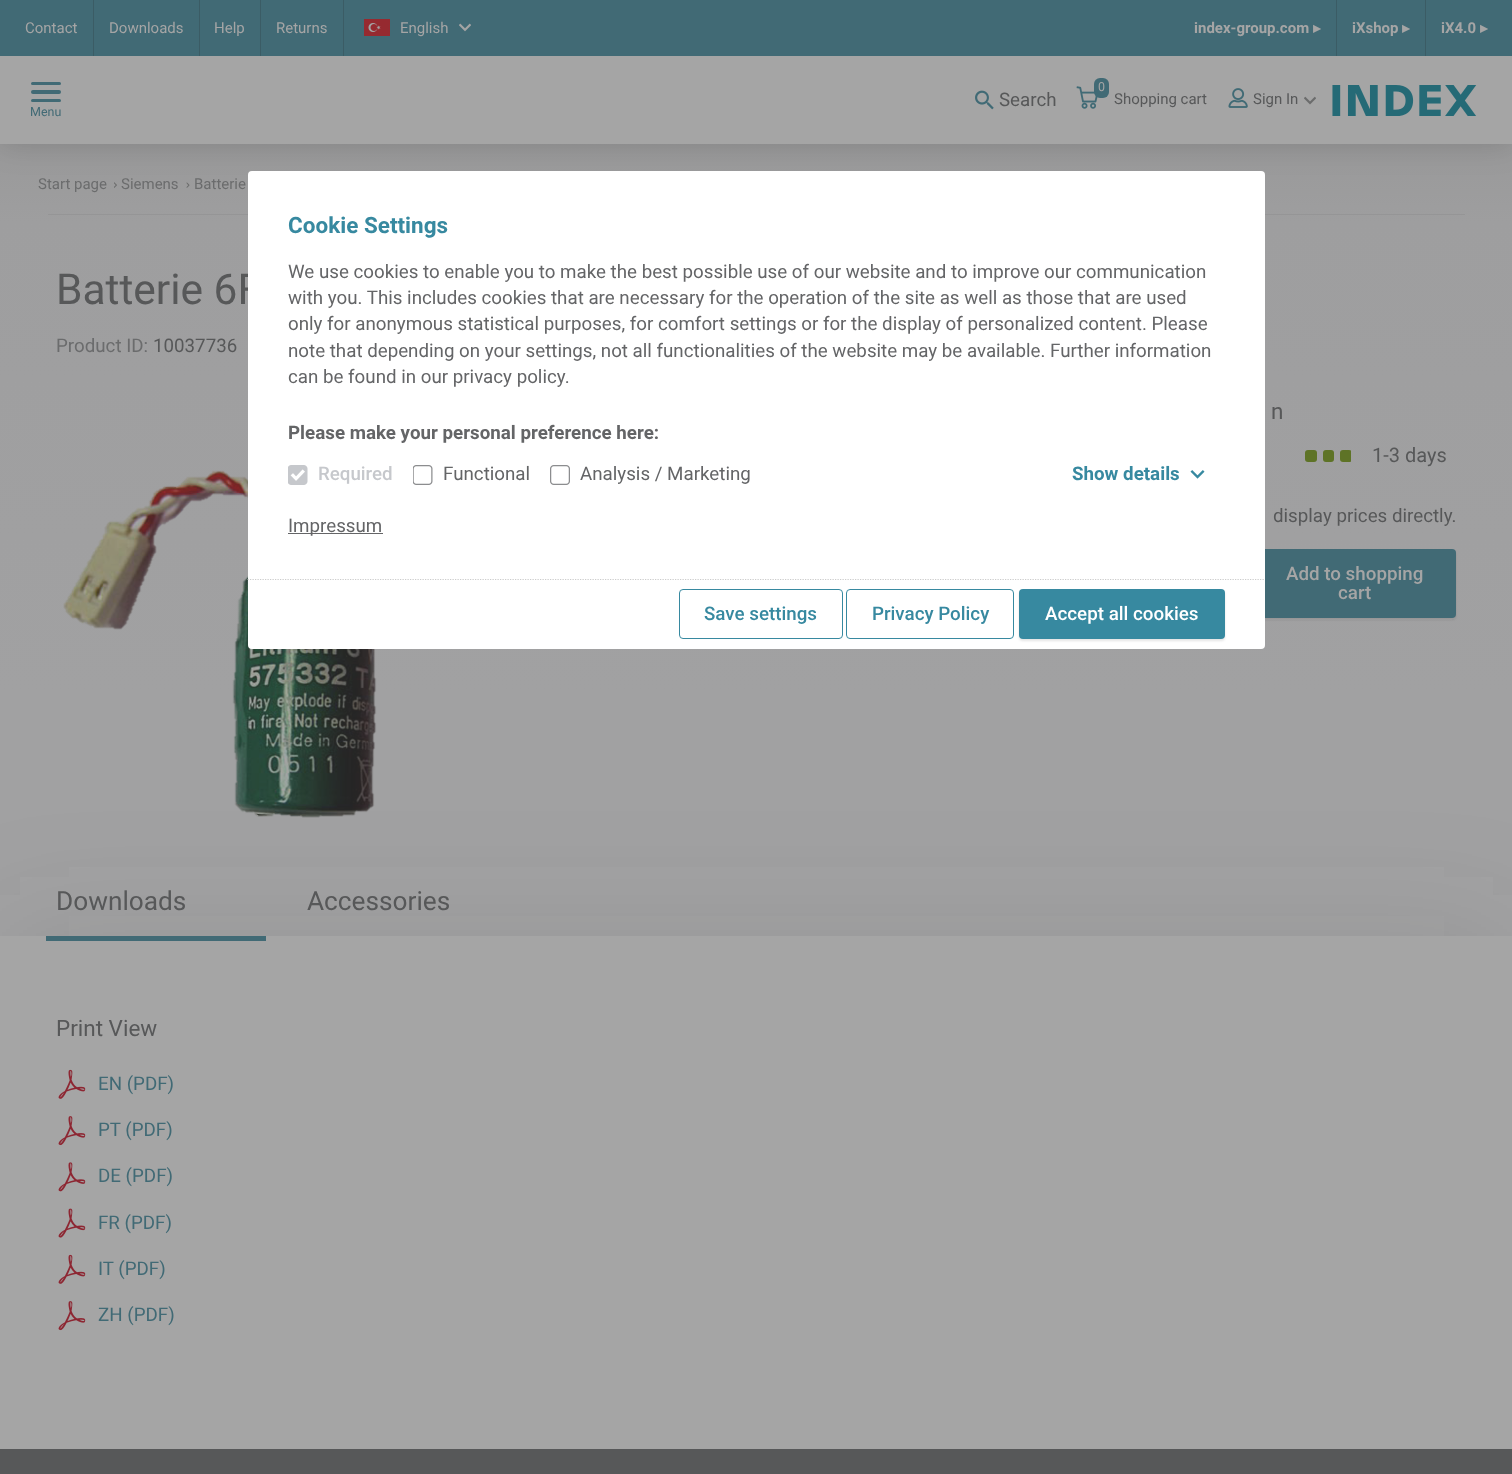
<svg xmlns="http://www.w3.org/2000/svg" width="1512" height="1474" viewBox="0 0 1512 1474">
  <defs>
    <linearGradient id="g1" gradientUnits="userSpaceOnUse" x1="756" y1="0" x2="756" y2="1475"><stop offset="0" stop-color="#8f8f8f"/><stop offset="0.15" stop-color="#9e9e9f"/><stop offset="0.47" stop-color="#a1a1a2"/><stop offset="1" stop-color="#a1a1a2"/></linearGradient>
    <filter id="blur1" x="-50%" y="-200%" width="200%" height="500%"><feGaussianBlur stdDeviation="15.5"/></filter>
    <clipPath id="clip1"><rect x="1305" y="438" width="46" height="37"/></clipPath>
    <filter id="blur2" x="-50%" y="-200%" width="200%" height="500%"><feGaussianBlur stdDeviation="1"/></filter>
    <filter id="blur3" x="-50%" y="-200%" width="200%" height="500%"><feGaussianBlur stdDeviation="62.5"/></filter>
  </defs>
  <rect width="100%" height="100%" fill="#ffffff"/>
  <rect x="0" y="144" width="1512" height="792" fill="url(#g1)"/>
  <image x="114" y="182" width="3" height="6" href="img8.png"/>
  <image x="186" y="182" width="4" height="6" href="img9.png"/>
  <rect x="0" y="0" width="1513" height="144" fill="#252525" fill-opacity="0.15" filter="url(#blur1)"/>
  <rect x="0" y="56" width="1512" height="88" fill="#a5a5a5"/>
  <rect x="0" y="0" width="1512" height="56" fill="#416a75"/>
  <rect x="93" y="0" width="1" height="56" fill="#3b5c65"/>
  <text x="25" y="33" font-family="Roboto" font-size="15" fill="#a5a5a5">Contact</text>
  <rect x="199" y="0" width="1" height="56" fill="#3b5c65"/>
  <text x="109" y="33" font-family="Roboto" font-size="15" fill="#a5a5a5">Downloads</text>
  <rect x="260" y="0" width="1" height="56" fill="#3b5c65"/>
  <text x="214" y="33" font-family="Roboto" font-size="15" fill="#a5a5a5">Help</text>
  <rect x="343" y="0" width="1" height="56" fill="#3b5c65"/>
  <text x="276" y="33" font-family="Roboto" font-size="15" fill="#a5a5a5">Returns</text>
  <image x="364" y="19" width="26" height="17" href="img1.png"/>
  <text x="400" y="33" font-family="Roboto" font-size="15" fill="#a5a5a5">English</text>
  <image x="459" y="23" width="12" height="9" href="img2.png"/>
  <rect x="1336" y="0" width="1" height="56" fill="#3b5c65"/>
  <text x="1194" y="33" font-family="Roboto" font-size="15" font-weight="bold" fill="#a5a5a5">index-group.com</text>
  <text x="1313" y="33" font-family="DejaVu Sans" font-size="15" font-weight="bold" fill="#a5a5a5">▸</text>
  <rect x="1425" y="0" width="1" height="56" fill="#3b5c65"/>
  <text x="1352" y="33" font-family="Roboto" font-size="15" font-weight="bold" fill="#a5a5a5">iXshop</text>
  <text x="1402" y="33" font-family="DejaVu Sans" font-size="15" font-weight="bold" fill="#a5a5a5">▸</text>
  <text x="1441" y="33" font-family="Roboto" font-size="15" font-weight="bold" fill="#a5a5a5">iX4.0</text>
  <text x="1480" y="33" font-family="DejaVu Sans" font-size="15" font-weight="bold" fill="#a5a5a5">▸</text>
  <image x="975" y="90" width="19" height="20" href="img3.png"/>
  <text x="999" y="106" font-family="Roboto" font-size="18.75" fill="#575859">Search</text>
  <rect x="1094" y="78" width="15" height="20" rx="6" fill="#416a75"/>
  <image x="1076" y="86" width="22" height="23" href="img4.png"/>
  <text x="1098" y="91" font-family="Roboto" font-size="12.5" fill="#a5a5a5">0</text>
  <text x="1114" y="104" font-family="Roboto" font-size="15" fill="#575859">Shopping cart</text>
  <image x="1228" y="88" width="20" height="20" href="img5.png"/>
  <text x="1253" y="104" font-family="Roboto" font-size="15" fill="#575859">Sign In</text>
  <image x="1304" y="96" width="12" height="9" href="img6.png"/>
  <image x="1332" y="85" width="145" height="31" href="img7.png"/>
  <rect x="31" y="82" width="30" height="3" rx="1.5" fill="#416a75"/>
  <rect x="31" y="90" width="30" height="4" rx="2" fill="#416a75"/>
  <rect x="31" y="99" width="30" height="3" rx="1.5" fill="#416a75"/>
  <text x="30" y="116" font-family="Roboto" font-size="12.5" fill="#416a75">Menu</text>
  <text x="38" y="189" font-family="Roboto" font-size="15" fill="#6b6c6d">Start page</text>
  <text x="121" y="189" font-family="Roboto" font-size="15" fill="#6b6c6d">Siemens</text>
  <text x="194" y="189" font-family="Roboto" font-size="15" fill="#6b6c6d">Batterie</text>
  <rect x="48" y="214" width="1417" height="1" fill="#959596"/>
  <text x="56" y="304" font-family="Roboto" font-size="42.5" fill="#575859">Batterie 6F</text>
  <text x="56" y="352" font-family="Roboto" font-size="18.75" fill="#6b6c6d">Product ID:</text>
  <text x="153" y="352" font-family="Roboto" font-size="18.75" fill="#575859">10037736</text>
  <image x="63" y="470" width="314" height="348" href="img10.png"/>
  <text x="1271" y="419" font-family="Roboto" font-size="22.5" fill="#575859">n</text>
  <rect x="1305" y="450" width="12" height="12" rx="3" fill="#5e7326"/>
  <rect x="1323" y="450" width="11" height="12" rx="3" fill="#5e7326"/>
  <g clip-path="url(#clip1)">
    <rect x="1340" y="450" width="12" height="12" rx="3" fill="#5e7326"/>
  </g>
  <text x="1372" y="462" font-family="Roboto" font-size="20" fill="#575859">1-3 days</text>
  <text x="1273" y="522" font-family="Roboto" font-size="18.75" fill="#575859">display prices directly.</text>
  <rect x="1254" y="551" width="202" height="69" rx="4" fill="#252525" fill-opacity="0.1" filter="url(#blur2)"/>
  <rect x="1254" y="549" width="202" height="69" rx="4" fill="#416a75"/>
  <text x="1286" y="580" font-family="Roboto" font-size="18.75" font-weight="500" fill="#a5a5a5">Add to shopping</text>
  <text x="1338" y="599" font-family="Roboto" font-size="18.75" font-weight="500" fill="#a5a5a5">cart</text>
  <rect x="0" y="936" width="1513" height="513" fill="#575859" fill-opacity="0.15" filter="url(#blur3)"/>
  <text x="56" y="910" font-family="Roboto" font-size="26.25" fill="#575859">Downloads</text>
  <rect x="0" y="936" width="1512" height="513" fill="#a5a5a5"/>
  <rect x="46" y="936" width="220" height="5" fill="#416a75"/>
  <text x="307" y="910" font-family="Roboto" font-size="26.25" fill="#575859">Accessories</text>
  <text x="56" y="1036" font-family="Roboto" font-size="22.5" fill="#575859">Print View</text>
  <image x="58" y="1069" width="28" height="30" href="img11.png"/>
  <text x="98" y="1090" font-family="Roboto" font-size="18.75" fill="#416a75">EN (PDF)</text>
  <image x="58" y="1116" width="28" height="30" href="img12.png"/>
  <text x="98" y="1136" font-family="Roboto" font-size="18.75" fill="#416a75">PT (PDF)</text>
  <image x="58" y="1162" width="28" height="30" href="img13.png"/>
  <text x="98" y="1182" font-family="Roboto" font-size="18.75" fill="#416a75">DE (PDF)</text>
  <image x="58" y="1208" width="28" height="30" href="img14.png"/>
  <text x="98" y="1229" font-family="Roboto" font-size="18.75" fill="#416a75">FR (PDF)</text>
  <image x="58" y="1254" width="28" height="30" href="img11.png"/>
  <text x="98" y="1275" font-family="Roboto" font-size="18.75" fill="#416a75">IT (PDF)</text>
  <image x="58" y="1301" width="28" height="30" href="img12.png"/>
  <text x="98" y="1321" font-family="Roboto" font-size="18.75" fill="#416a75">ZH (PDF)</text>
  <rect x="0" y="1449" width="1512" height="25" fill="#575859"/>
  <rect x="248" y="171" width="1017" height="478" rx="4" fill="#ffffff"/>
  <path d="M247.5 579.5H1265" fill="none" stroke="#cccccc" stroke-width="1.2" stroke-dasharray="1.25 1.25"/>
  <text x="288" y="233" font-family="Roboto" font-size="22.5" font-weight="bold" fill="#3789a0">Cookie Settings</text>
  <text x="288" y="278" font-family="Roboto" font-size="18.75" fill="#646567">We use cookies to enable you to make the best possible use of our website and to improve our communication</text>
  <text x="288" y="304" font-family="Roboto" font-size="18.75" fill="#646567">with you. This includes cookies that are necessary for the operation of the site as well as those that are used</text>
  <text x="288" y="330" font-family="Roboto" font-size="18.75" fill="#646567">only for anonymous statistical purposes, for comfort settings or for the display of personalized content. Please</text>
  <text x="288" y="357" font-family="Roboto" font-size="18.75" fill="#646567">note that depending on your settings, not all functionalities of the website may be available. Further information</text>
  <text x="288" y="383" font-family="Roboto" font-size="18.75" fill="#646567">can be found in our privacy policy.</text>
  <text x="288" y="439" font-family="Roboto" font-size="18.75" font-weight="bold" fill="#646567">Please make your personal preference here:</text>
  <image x="288" y="465" width="20" height="20" href="img15.png"/>
  <text x="318" y="480" font-family="Roboto" font-size="18.75" font-weight="500" fill="#c6c8cc">Required</text>
  <image x="413" y="465" width="20" height="20" href="img16.png"/>
  <text x="443" y="480" font-family="Roboto" font-size="18.75" fill="#646567">Functional</text>
  <image x="550" y="465" width="20" height="20" href="img17.png"/>
  <text x="580" y="480" font-family="Roboto" font-size="18.75" fill="#646567">Analysis / Marketing</text>
  <text x="1072" y="480" font-family="Roboto" font-size="18.75" font-weight="bold" fill="#3789a0">Show details</text>
  <image x="1190" y="470" width="15" height="9" href="img18.png"/>
  <rect x="288" y="533" width="95" height="1" fill="#646567"/>
  <text x="288" y="532" font-family="Roboto" font-size="18.75" fill="#646567">Impressum</text>
  <rect x="679.5" y="589.5" width="163" height="49" rx="3.5" fill="none" stroke="#3789a0"/>
  <text x="704" y="620" font-family="Roboto" font-size="18.75" font-weight="500" fill="#3789a0">Save settings</text>
  <rect x="846.5" y="589.5" width="167" height="49" rx="3.5" fill="none" stroke="#3789a0"/>
  <text x="872" y="620" font-family="Roboto" font-size="18.75" font-weight="500" fill="#3789a0">Privacy Policy</text>
  <rect x="1019" y="591" width="206" height="50" rx="4" fill="#000000" fill-opacity="0.1" filter="url(#blur2)"/>
  <rect x="1019" y="589" width="206" height="50" rx="4" fill="#3789a0"/>
  <text x="1045" y="620" font-family="Roboto" font-size="18.75" font-weight="500" fill="#ffffff">Accept all cookies</text>
</svg>
